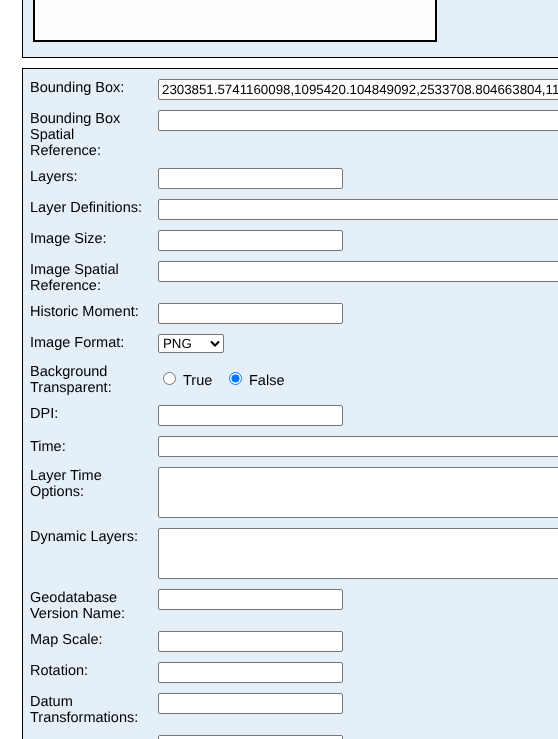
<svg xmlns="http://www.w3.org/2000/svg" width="558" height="739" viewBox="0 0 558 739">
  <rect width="100%" height="100%" fill="#ffffff"/>
  <rect x="22.5" y="-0.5" width="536" height="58" fill="#e5eff7" stroke="#000000"/>
  <rect x="34" y="-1" width="402" height="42" fill="none" stroke="#000000" stroke-width="2"/>
  <rect x="35" y="0" width="400" height="40" fill="#fdfdfd"/>
  <rect x="22.5" y="68.5" width="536" height="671" fill="#e5eff7" stroke="#000000"/>
  <text x="30" y="92" font-family="Liberation Sans" font-size="14.5" fill="#000000">Bounding Box:</text>
  <rect x="158.5" y="79.5" width="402" height="20" rx="1.5" fill="#ffffff" stroke="#767676"/>
  <text x="162" y="94" font-family="Liberation Sans" font-size="13.3" fill="#000000">2303851.5741160098,1095420.104849092,2533708.804663804,11</text>
  <text x="30" y="123" font-family="Liberation Sans" font-size="14.5" fill="#000000">Bounding Box</text>
  <text x="30" y="139" font-family="Liberation Sans" font-size="14.5" fill="#000000">Spatial</text>
  <text x="30" y="155" font-family="Liberation Sans" font-size="14.5" fill="#000000">Reference:</text>
  <rect x="158.5" y="110.5" width="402" height="20" rx="1.5" fill="#ffffff" stroke="#767676"/>
  <text x="30" y="181" font-family="Liberation Sans" font-size="14.5" fill="#000000">Layers:</text>
  <rect x="158.5" y="168.5" width="184" height="20" rx="1.5" fill="#ffffff" stroke="#767676"/>
  <text x="30" y="212" font-family="Liberation Sans" font-size="14.5" fill="#000000">Layer Definitions:</text>
  <rect x="158.5" y="199.5" width="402" height="20" rx="1.5" fill="#ffffff" stroke="#767676"/>
  <text x="30" y="243" font-family="Liberation Sans" font-size="14.5" fill="#000000">Image Size:</text>
  <rect x="158.5" y="230.5" width="184" height="20" rx="1.5" fill="#ffffff" stroke="#767676"/>
  <text x="30" y="274" font-family="Liberation Sans" font-size="14.5" fill="#000000">Image Spatial</text>
  <text x="30" y="290" font-family="Liberation Sans" font-size="14.5" fill="#000000">Reference:</text>
  <rect x="158.5" y="261.5" width="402" height="20" rx="1.5" fill="#ffffff" stroke="#767676"/>
  <text x="30" y="316" font-family="Liberation Sans" font-size="14.5" fill="#000000">Historic Moment:</text>
  <rect x="158.5" y="303.5" width="184" height="20" rx="1.5" fill="#ffffff" stroke="#767676"/>
  <text x="30" y="347" font-family="Liberation Sans" font-size="14.5" fill="#000000">Image Format:</text>
  <rect x="158.5" y="334.5" width="65" height="18" rx="1.5" fill="#ffffff" stroke="#767676"/>
  <path d="M211 341.5L215 345.5L219 341.5" fill="none" stroke="#000000" stroke-width="2"/>
  <text x="163" y="348" font-family="Liberation Sans" font-size="13.3" fill="#000000">PNG</text>
  <text x="30" y="376" font-family="Liberation Sans" font-size="14.5" fill="#000000">Background</text>
  <text x="30" y="392" font-family="Liberation Sans" font-size="14.5" fill="#000000">Transparent:</text>
  <circle cx="169.5" cy="378.5" r="6" fill="#ffffff" stroke="#767676"/>
  <text x="183" y="385" font-family="Liberation Sans" font-size="14.5" fill="#000000">True</text>
  <circle cx="235.5" cy="378.5" r="6" fill="#ffffff" stroke="#0075ff"/>
  <circle cx="235.5" cy="378.5" r="4" fill="#0075ff"/>
  <text x="249" y="385" font-family="Liberation Sans" font-size="14.5" fill="#000000">False</text>
  <text x="30" y="418" font-family="Liberation Sans" font-size="14.5" fill="#000000">DPI:</text>
  <rect x="158.5" y="405.5" width="184" height="20" rx="1.5" fill="#ffffff" stroke="#767676"/>
  <text x="30" y="451" font-family="Liberation Sans" font-size="14.5" fill="#000000">Time:</text>
  <rect x="158.5" y="436.5" width="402" height="20" rx="1.5" fill="#ffffff" stroke="#767676"/>
  <text x="30" y="480" font-family="Liberation Sans" font-size="14.5" fill="#000000">Layer Time</text>
  <text x="30" y="496" font-family="Liberation Sans" font-size="14.5" fill="#000000">Options:</text>
  <rect x="158.5" y="467.5" width="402" height="50" rx="1.5" fill="#ffffff" stroke="#767676"/>
  <text x="30" y="541" font-family="Liberation Sans" font-size="14.5" fill="#000000">Dynamic Layers:</text>
  <rect x="158.5" y="528.5" width="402" height="50" rx="1.5" fill="#ffffff" stroke="#767676"/>
  <text x="30" y="602" font-family="Liberation Sans" font-size="14.5" fill="#000000">Geodatabase</text>
  <text x="30" y="618" font-family="Liberation Sans" font-size="14.5" fill="#000000">Version Name:</text>
  <rect x="158.5" y="589.5" width="184" height="20" rx="1.5" fill="#ffffff" stroke="#767676"/>
  <text x="30" y="644" font-family="Liberation Sans" font-size="14.5" fill="#000000">Map Scale:</text>
  <rect x="158.5" y="631.5" width="184" height="20" rx="1.5" fill="#ffffff" stroke="#767676"/>
  <text x="30" y="675" font-family="Liberation Sans" font-size="14.5" fill="#000000">Rotation:</text>
  <rect x="158.5" y="662.5" width="184" height="20" rx="1.5" fill="#ffffff" stroke="#767676"/>
  <text x="30" y="706" font-family="Liberation Sans" font-size="14.5" fill="#000000">Datum</text>
  <text x="30" y="722" font-family="Liberation Sans" font-size="14.5" fill="#000000">Transformations:</text>
  <rect x="158.5" y="693.5" width="184" height="20" rx="1.5" fill="#ffffff" stroke="#767676"/>
  <rect x="158.5" y="735.5" width="184" height="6" rx="1.5" fill="#ffffff" stroke="#767676"/>
</svg>
